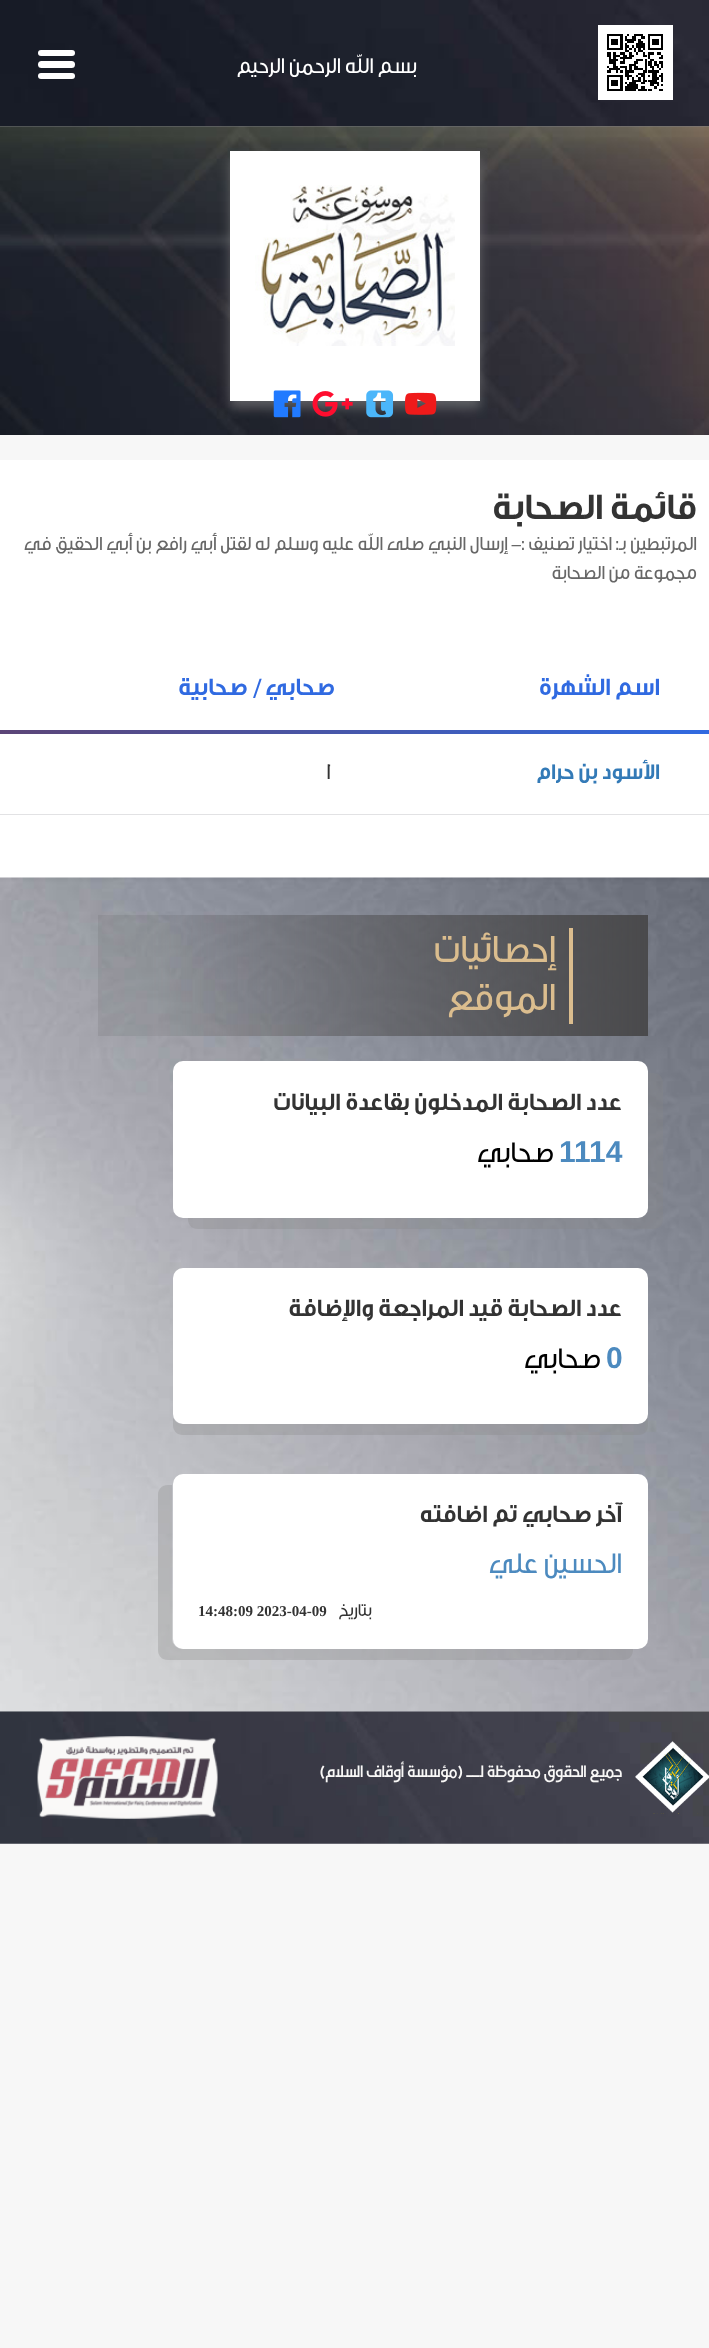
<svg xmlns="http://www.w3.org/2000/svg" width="709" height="2348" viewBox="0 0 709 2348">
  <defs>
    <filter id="blur1" x="-50%" y="-200%" width="200%" height="500%"><feGaussianBlur stdDeviation="5.5"/></filter>
    <linearGradient id="g1" gradientUnits="userSpaceOnUse" x1="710" y1="732" x2="0" y2="732"><stop offset="0" stop-color="#306ae1"/><stop offset="1" stop-color="#5c4577"/></linearGradient>
  </defs>
  <rect width="100%" height="100%" fill="#f7f7f7"/>
  <image x="0" y="126" width="709" height="309" href="img3.png"/>
  <image x="0" y="0" width="709" height="127" href="img1.png"/>
  <image x="598" y="25" width="75" height="75" href="img2.png"/>
  <text x="417" y="73" font-family="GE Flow" font-size="22.5" direction="rtl" fill="#ffffff">بسم الله الرحمن الرحيم</text>
  <rect x="38" y="50" width="37" height="6" rx="3" fill="#ffffff"/>
  <rect x="38" y="61" width="37" height="7" rx="3.5" fill="#ffffff"/>
  <rect x="38" y="73" width="37" height="6" rx="3" fill="#ffffff"/>
  <rect x="230" y="158" width="250" height="250" fill="#888888" fill-opacity="0.56" filter="url(#blur1)"/>
  <rect x="230" y="151" width="250" height="250" fill="#ffffff"/>
  <image x="255" y="185" width="200" height="161" href="img4.png"/>
  <image x="405" y="392" width="32" height="23" href="img5.png"/>
  <image x="366" y="390" width="28" height="28" href="img6.png"/>
  <image x="312" y="391" width="41" height="26" href="img7.png"/>
  <image x="273" y="390" width="28" height="28" href="img8.png"/>
  <rect x="0" y="460" width="709" height="418" fill="#ffffff"/>
  <text x="697" y="519" font-family="GE Flow" font-size="37.5" font-weight="bold" direction="rtl" fill="#333333">قائمة الصحابة</text>
  <text x="697" y="550" font-family="GE Flow" font-size="20" direction="rtl" fill="#676767">المرتبطين بـ: اختيار تصنيف :-</text>
  <text x="508" y="550" font-family="GE Flow" font-size="20" direction="rtl" fill="#676767">إرسال النبي صلى الله عليه وسلم له لقتل أبي رافع بن أبي الحقيق في</text>
  <text x="697" y="579" font-family="GE Flow" font-size="20" direction="rtl" fill="#676767">مجموعة من الصحابة</text>
  <text x="660" y="695" font-family="GE Flow" font-size="25" font-weight="bold" direction="rtl" fill="#306ae1">اسم الشهرة</text>
  <text x="335" y="695" font-family="GE Flow" font-size="25" font-weight="bold" direction="rtl" fill="#306ae1">صحابي / صحابية</text>
  <rect x="0" y="730" width="709" height="4" fill="url(#g1)"/>
  <rect x="0" y="814" width="709" height="1" fill="#e2e2e4"/>
  <text x="660" y="779" font-family="GE Flow" font-size="22.5" font-weight="bold" direction="rtl" fill="#337ab7">الأسود بن حرام</text>
  <text x="323" y="779" font-family="GE Flow" font-size="22.5" fill="#333333">1</text>
  <image x="0" y="1711" width="709" height="133" href="img10.png"/>
  <image x="0" y="877" width="709" height="835" href="img9.png"/>
  <rect x="569" y="928" width="4" height="96" fill="#dbbd8e"/>
  <text x="556" y="962" font-family="GE Flow" font-size="40" direction="rtl" fill="#dbbd8e">إحصائيات</text>
  <text x="556" y="1010" font-family="GE Flow" font-size="40" direction="rtl" fill="#dbbd8e">الموقع</text>
  <path d="M188 1218V1219C188 1225 192 1229 198 1229H653C659 1229 663 1225 663 1219V1083C663 1077 659 1073 653 1073H648V1208C648 1213 643 1218 638 1218Z" fill="#888888" fill-opacity="0.29"/>
  <rect x="173" y="1061" width="475" height="157" rx="10" fill="#ffffff"/>
  <text x="622" y="1110" font-family="GE Flow" font-size="25" font-weight="bold" direction="rtl" fill="#333333">عدد الصحابة المدخلون بقاعدة البيانات</text>
  <text x="559" y="1162" font-family="Liberation Sans" font-size="30" font-weight="bold" fill="#4c8abf">1114</text>
  <text x="554" y="1162" font-family="GE Flow" font-size="30" direction="rtl" fill="#000000">صحابي</text>
  <path d="M173 1417V1425C173 1431 177 1435 183 1435H638C644 1435 648 1431 648 1425V1289V1286V1414C648 1419 643 1424 638 1424H182C178 1424 174 1421 173 1417Z" fill="#888888" fill-opacity="0.29"/>
  <rect x="173" y="1268" width="475" height="156" rx="10" fill="#ffffff"/>
  <text x="622" y="1316" font-family="GE Flow" font-size="25" font-weight="bold" direction="rtl" fill="#333333">عدد الصحابة قيد المراجعة والإضافة</text>
  <text x="606" y="1368" font-family="Liberation Sans" font-size="30" font-weight="bold" fill="#4c8abf">0</text>
  <text x="601" y="1368" font-family="GE Flow" font-size="30" direction="rtl" fill="#000000">صحابي</text>
  <path d="M168 1485C162 1485 158 1489 158 1495V1650C158 1656 162 1660 168 1660H623C629 1660 633 1656 633 1650V1649H182C177 1649 172 1644 172 1639V1485Z" fill="#888888" fill-opacity="0.29"/>
  <rect x="173" y="1474" width="475" height="175" rx="10" fill="#ffffff"/>
  <text x="622" y="1522" font-family="GE Flow" font-size="25" font-weight="bold" direction="rtl" fill="#333333">آخر صحابي تم اضافته</text>
  <text x="622" y="1573" font-family="GE Flow" font-size="30" direction="rtl" fill="#4c8abf">الحسين علي</text>
  <text x="372" y="1616" font-family="GE Flow" font-size="18" direction="rtl" fill="#333333">بتاريخ</text>
  <text x="198" y="1616" font-family="Liberation Serif" font-size="15" font-weight="bold" fill="#333333">14:48:09 2023-04-09</text>
  <image x="635" y="1741" width="74" height="73" href="img11.png"/>
  <text x="622" y="1777" font-family="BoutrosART" font-size="18.75" font-weight="500" direction="rtl" fill="#f9f8f7">جميع الحقوق محفوظة لــ (مؤسسة أوقاف السلام)</text>
  <image x="37" y="1736" width="181" height="83" href="img12.png"/>
</svg>
